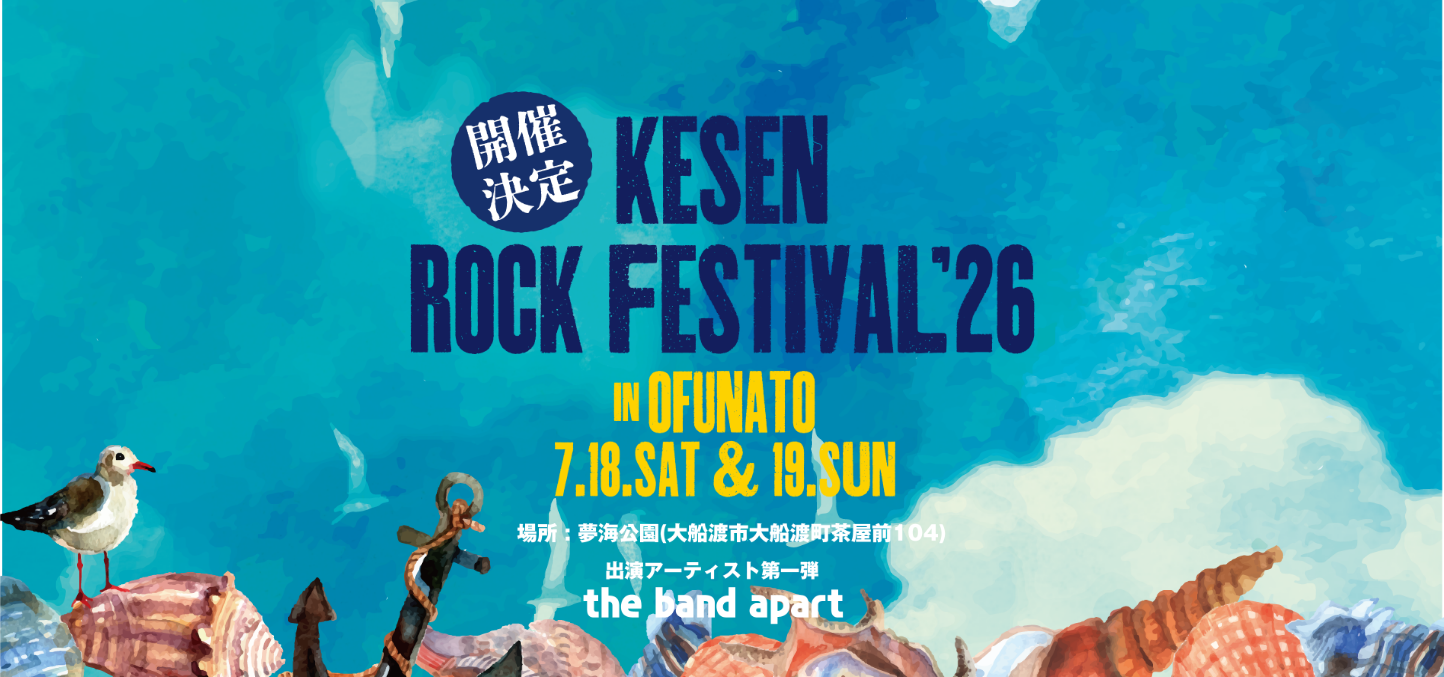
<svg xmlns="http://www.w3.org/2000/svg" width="1444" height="677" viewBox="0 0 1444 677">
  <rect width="100%" height="100%" fill="#ffffff"/>
  <image x="0" y="0" width="1444" height="677" href="img1.png"/>
  <image x="410" y="91" width="625" height="534" href="img2.png"/>
</svg>
